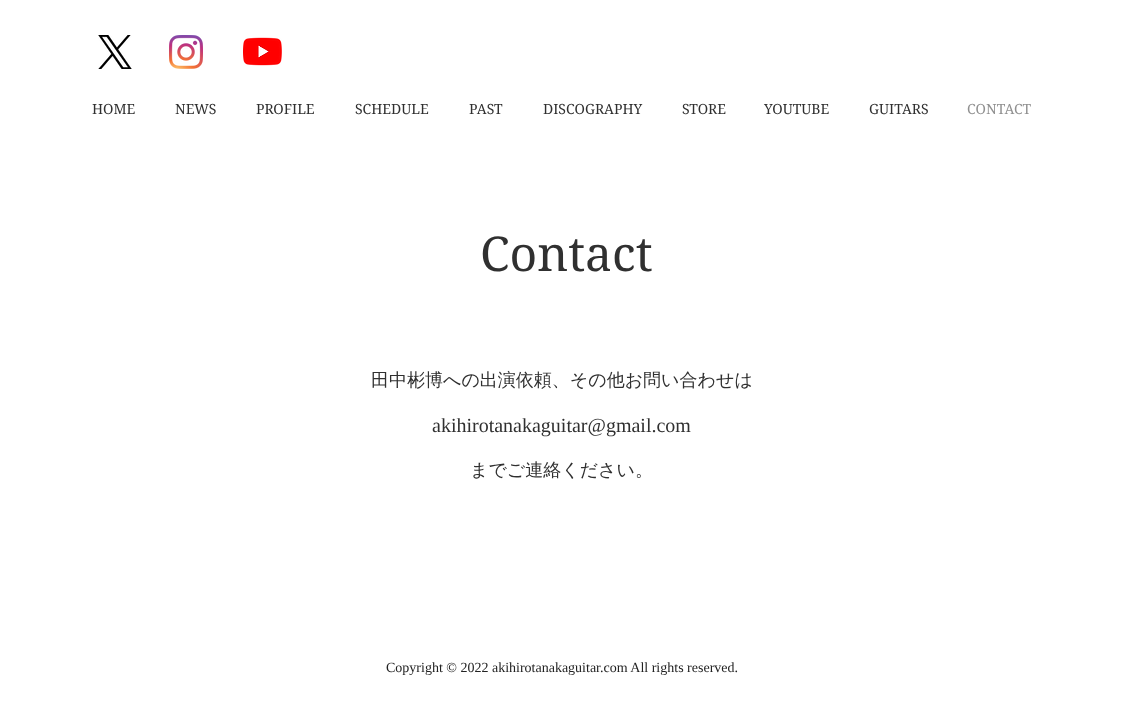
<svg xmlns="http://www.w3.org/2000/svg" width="1124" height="705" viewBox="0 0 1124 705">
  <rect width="100%" height="100%" fill="#ffffff"/>
  <image x="98" y="35" width="34" height="34" href="img1.png"/>
  <image x="169" y="35" width="34" height="34" href="img2.png"/>
  <image x="243" y="37" width="39" height="29" href="img3.png"/>
  <text x="92" y="114" font-family="'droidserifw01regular'" font-size="14" fill="#303030">HOME</text>
  <text x="175" y="114" font-family="'droidserifw01regular'" font-size="14" fill="#303030">NEWS</text>
  <text x="256" y="114" font-family="'droidserifw01regular'" font-size="14" fill="#303030">PROFILE</text>
  <text x="355" y="114" font-family="'droidserifw01regular'" font-size="14" fill="#303030">SCHEDULE</text>
  <text x="469" y="114" font-family="'droidserifw01regular'" font-size="14" fill="#303030">PAST</text>
  <text x="543" y="114" font-family="'droidserifw01regular'" font-size="14" fill="#303030">DISCOGRAPHY</text>
  <text x="682" y="114" font-family="'droidserifw01regular'" font-size="14" fill="#303030">STORE</text>
  <text x="764" y="114" font-family="'droidserifw01regular'" font-size="14" fill="#303030">YOUTUBE</text>
  <text x="869" y="114" font-family="'droidserifw01regular'" font-size="14" fill="#303030">GUITARS</text>
  <text x="967" y="114" font-family="'droidserifw01regular'" font-size="14" fill="#909090">CONTACT</text>
  <text x="480" y="271" font-family="'droidserifw01regular'" font-size="48" fill="#303030">Contact</text>
  <text x="371" y="386" font-family="WenQuanYi Zen Hei" font-size="18" font-weight="500" fill="#303030">田中彬博への出演依頼、その他お問い合わせは</text>
  <text x="432" y="432" font-family="Liberation Serif" font-size="20" fill="#303030">akihirotanakaguitar@gmail.com</text>
  <text x="470" y="476" font-family="WenQuanYi Zen Hei" font-size="18" font-weight="500" fill="#303030">までご連絡ください。</text>
  <text x="386" y="672" font-family="Liberation Serif" font-size="14" fill="#222222">Copyright ©︎ 2022 akihirotanakaguitar.com All rights reserved.</text>
</svg>
